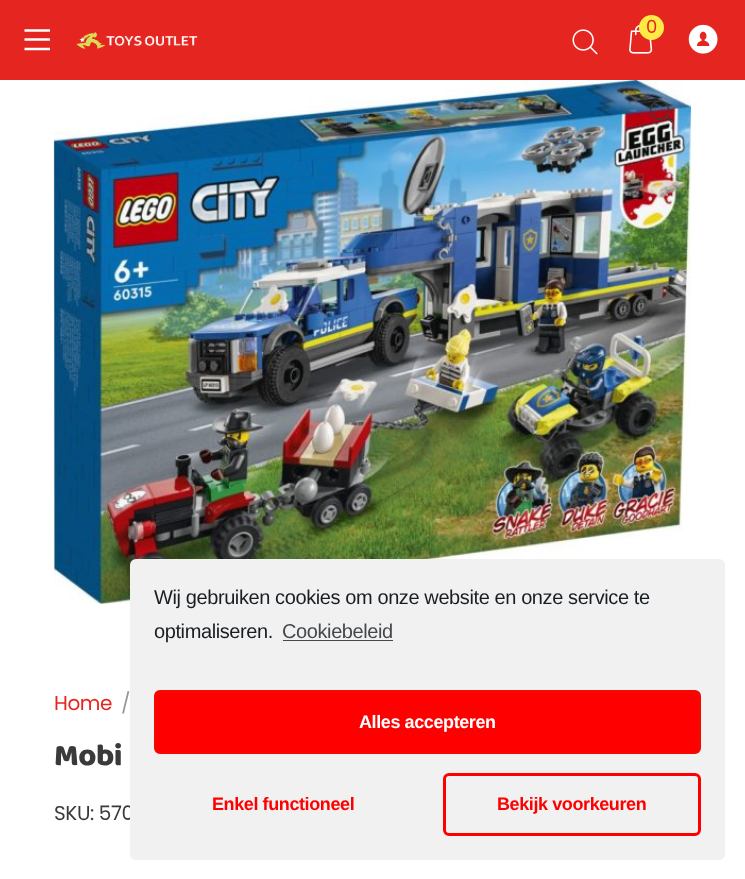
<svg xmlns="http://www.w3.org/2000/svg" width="745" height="879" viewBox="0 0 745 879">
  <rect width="100%" height="100%" fill="#ffffff"/>
  <rect x="0" y="0" width="745" height="80" fill="#e52620"/>
  <image x="629" y="24" width="24" height="30" href="img1.png"/>
  <circle cx="651.5" cy="27.5" r="12.5" fill="#fdea45"/>
  <text x="646" y="33" font-family="Poppins" font-size="18" fill="#e52620">0</text>
  <image x="688" y="24" width="30" height="30" href="img2.png"/>
  <path d="M24.5 30.5H50M24.5 39.5H50M24.5 49H50" fill="none" stroke="#ffffff" stroke-width="2.3"/>
  <image x="76" y="32" width="122" height="17" href="img3.png"/>
  <image x="572" y="29" width="26" height="26" href="img4.png"/>
  <image x="53" y="80" width="639" height="524" href="img5.png"/>
  <image x="650" y="100" width="23" height="23" href="img6.png"/>
  <text x="54" y="710" font-family="Poppins" font-size="20" letter-spacing="-0.4" fill="#e52620">Home</text>
  <text x="121" y="710" font-family="Poppins" font-size="20" letter-spacing="-0.4" fill="#979797">/</text>
  <text x="54" y="765" font-family="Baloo" font-size="31" letter-spacing="-0.4" fill="#3a3a3a">Mobi</text>
  <text x="54" y="820" font-family="Poppins" font-size="20" letter-spacing="-0.4" fill="#3a3a3a">SKU: 570</text>
  <rect x="130" y="559" width="595" height="301" rx="6" fill="#f1f1f1"/>
  <text x="154" y="604" font-family="Liberation Sans" font-size="20" letter-spacing="-0.4" fill="#191e23">Wij gebruiken cookies om onze website en onze service te</text>
  <text x="154" y="638" font-family="Liberation Sans" font-size="20" letter-spacing="-0.4" fill="#191e23">optimaliseren.</text>
  <text x="282" y="638" font-family="Liberation Sans" font-size="20" letter-spacing="-0.4" fill="#44484c">Cookiebeleid</text>
  <rect x="283" y="640" width="110" height="1" fill="#44484c"/>
  <rect x="155.5" y="691.5" width="544" height="61" rx="4.5" fill="#ff0000" stroke="#f40800" stroke-width="3"/>
  <text x="359" y="728" font-family="Liberation Sans" font-size="18" font-weight="bold" letter-spacing="-0.4" fill="#ffffff">Alles accepteren</text>
  <text x="212" y="810" font-family="Liberation Sans" font-size="18" font-weight="bold" letter-spacing="-0.4" fill="#ff0000">Enkel functioneel</text>
  <rect x="444.5" y="774.5" width="255" height="60" rx="4.5" fill="none" stroke="#ff0000" stroke-width="3"/>
  <text x="497" y="810" font-family="Liberation Sans" font-size="18" font-weight="bold" letter-spacing="-0.4" fill="#ff0000">Bekijk voorkeuren</text>
</svg>
